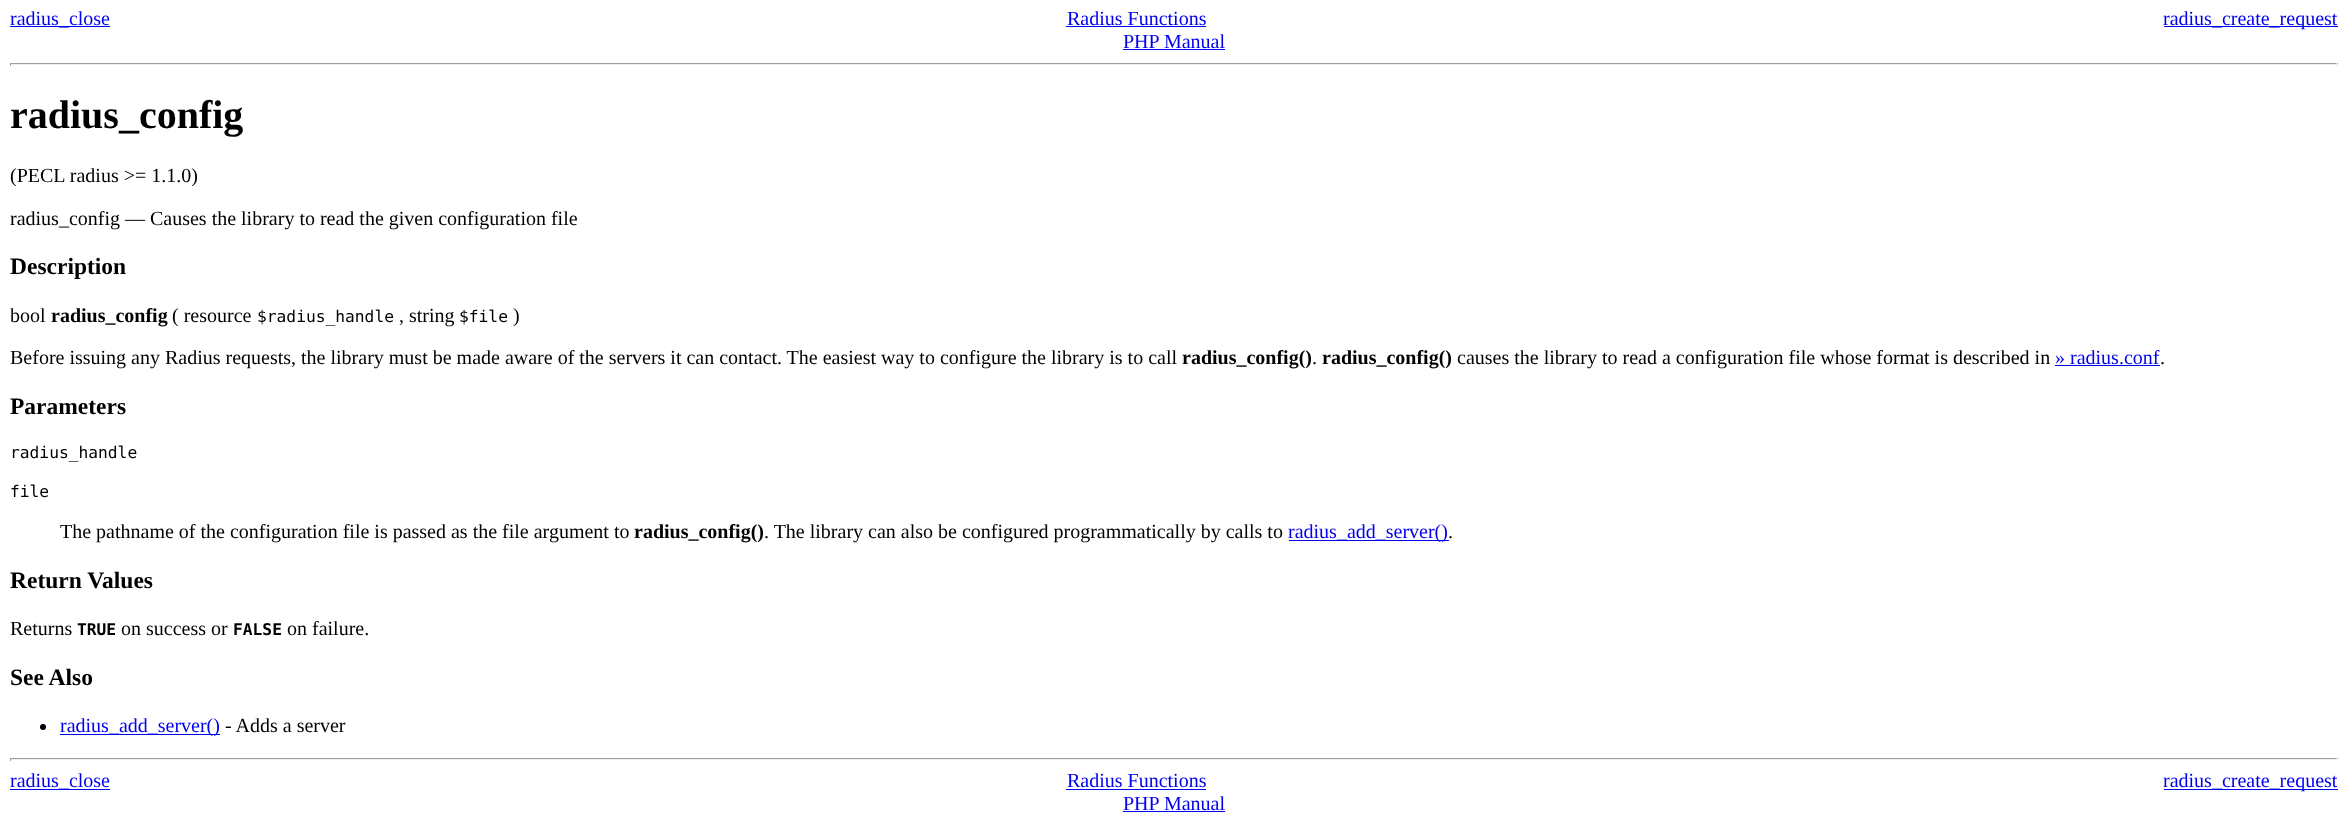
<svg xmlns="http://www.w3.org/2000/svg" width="2347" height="821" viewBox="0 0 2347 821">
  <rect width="100%" height="100%" fill="#ffffff"/>
  <rect x="10" y="26" width="100" height="1" fill="#0000ee"/>
  <text x="10" y="25" font-family="Liberation Serif" font-size="20" fill="#0000ee">radius_close</text>
  <text x="1067" y="25" font-family="Liberation Serif" font-size="20" fill="#0000ee">Radius Functions</text>
  <rect x="1066" y="26" width="140" height="1" fill="#0000ee"/>
  <rect x="2164" y="26" width="174" height="1" fill="#0000ee"/>
  <text x="2163" y="25" font-family="Liberation Serif" font-size="20" fill="#0000ee">radius_create_request</text>
  <text x="1123" y="48" font-family="Liberation Serif" font-size="20" fill="#0000ee">PHP Manual</text>
  <rect x="1123" y="49" width="102" height="1" fill="#0000ee"/>
  <rect x="10" y="63" width="2328" height="1" fill="#9f9f9f"/>
  <rect x="2336" y="63" width="1" height="3" fill="#eeeeee"/>
  <rect x="10" y="64" width="2328" height="1" fill="#eeeeee"/>
  <rect x="10" y="63" width="1" height="3" fill="#9f9f9f"/>
  <text x="10" y="128" font-family="Liberation Serif" font-size="40" font-weight="bold" fill="#000000">radius_config</text>
  <text x="10" y="182" font-family="Liberation Serif" font-size="20" fill="#000000">(PECL radius &gt;= 1.1.0)</text>
  <text x="10" y="225" font-family="Liberation Serif" font-size="20" fill="#000000">radius_config — Causes the library to read the given configuration file</text>
  <text x="10" y="274" font-family="Liberation Serif" font-size="23.5" font-weight="bold" fill="#000000">Description</text>
  <text x="10" y="322" font-family="Liberation Serif" font-size="20" fill="#000000">bool</text>
  <text x="51" y="322" font-family="Liberation Serif" font-size="20" font-weight="bold" fill="#000000">radius_config</text>
  <text x="172" y="322" font-family="Liberation Serif" font-size="20" fill="#000000">( resource</text>
  <text x="257" y="322" font-family="DejaVu Sans Mono" font-size="16.25" fill="#000000">$radius_handle</text>
  <text x="399" y="322" font-family="Liberation Serif" font-size="20" fill="#000000">, string</text>
  <text x="459" y="322" font-family="DejaVu Sans Mono" font-size="16.25" fill="#000000">$file</text>
  <text x="513" y="322" font-family="Liberation Serif" font-size="20" fill="#000000">)</text>
  <text x="10" y="364" font-family="Liberation Serif" font-size="20" fill="#000000">Before issuing any Radius requests, the library must be made aware of the servers it can contact. The easiest way to configure the library is to call</text>
  <text x="1182" y="364" font-family="Liberation Serif" font-size="20" font-weight="bold" fill="#000000">radius_config()</text>
  <text x="1312" y="364" font-family="Liberation Serif" font-size="20" fill="#000000">.</text>
  <text x="1322" y="364" font-family="Liberation Serif" font-size="20" font-weight="bold" fill="#000000">radius_config()</text>
  <text x="1457" y="364" font-family="Liberation Serif" font-size="20" fill="#000000">causes the library to read a configuration file whose format is described in</text>
  <text x="2055" y="364" font-family="Liberation Serif" font-size="20" fill="#0000ee">» radius.conf</text>
  <rect x="2055" y="365" width="105" height="1" fill="#0000ee"/>
  <text x="2160" y="364" font-family="Liberation Serif" font-size="20" fill="#000000">.</text>
  <text x="10" y="414" font-family="Liberation Serif" font-size="23.5" font-weight="bold" fill="#000000">Parameters</text>
  <text x="10" y="458" font-family="DejaVu Sans Mono" font-size="16.25" fill="#000000">radius_handle</text>
  <text x="10" y="497" font-family="DejaVu Sans Mono" font-size="16.25" fill="#000000">file</text>
  <text x="60" y="538" font-family="Liberation Serif" font-size="20" fill="#000000">The pathname of the configuration file is passed as the file argument to</text>
  <text x="634" y="538" font-family="Liberation Serif" font-size="20" font-weight="bold" fill="#000000">radius_config()</text>
  <text x="764" y="538" font-family="Liberation Serif" font-size="20" fill="#000000">. The library can also be configured programmatically by calls to</text>
  <rect x="1289" y="540" width="160" height="1" fill="#0000ee"/>
  <text x="1288" y="538" font-family="Liberation Serif" font-size="20" fill="#0000ee">radius_add_server()</text>
  <text x="1448" y="538" font-family="Liberation Serif" font-size="20" fill="#000000">.</text>
  <text x="10" y="588" font-family="Liberation Serif" font-size="23.5" font-weight="bold" fill="#000000">Return Values</text>
  <text x="10" y="635" font-family="Liberation Serif" font-size="20" fill="#000000">Returns</text>
  <text x="77" y="635" font-family="DejaVu Sans Mono" font-size="16.25" font-weight="bold" fill="#000000">TRUE</text>
  <text x="121" y="635" font-family="Liberation Serif" font-size="20" fill="#000000">on success or</text>
  <text x="233" y="635" font-family="DejaVu Sans Mono" font-size="16.25" font-weight="bold" fill="#000000">FALSE</text>
  <text x="287" y="635" font-family="Liberation Serif" font-size="20" fill="#000000">on failure.</text>
  <text x="10" y="685" font-family="Liberation Serif" font-size="23.5" font-weight="bold" fill="#000000">See Also</text>
  <circle cx="43" cy="727" r="3" fill="#000000"/>
  <rect x="60" y="734" width="160" height="1" fill="#0000ee"/>
  <text x="60" y="732" font-family="Liberation Serif" font-size="20" fill="#0000ee">radius_add_server()</text>
  <text x="225" y="732" font-family="Liberation Serif" font-size="20" fill="#000000">- Adds a server</text>
  <rect x="10" y="758" width="2328" height="1" fill="#9f9f9f"/>
  <rect x="2336" y="758" width="1" height="3" fill="#eeeeee"/>
  <rect x="10" y="759" width="2328" height="1" fill="#eeeeee"/>
  <rect x="10" y="758" width="1" height="3" fill="#9f9f9f"/>
  <rect x="10" y="789" width="100" height="1" fill="#0000ee"/>
  <text x="10" y="787" font-family="Liberation Serif" font-size="20" fill="#0000ee">radius_close</text>
  <text x="1067" y="787" font-family="Liberation Serif" font-size="20" fill="#0000ee">Radius Functions</text>
  <rect x="1066" y="789" width="140" height="1" fill="#0000ee"/>
  <rect x="2164" y="789" width="174" height="1" fill="#0000ee"/>
  <text x="2163" y="787" font-family="Liberation Serif" font-size="20" fill="#0000ee">radius_create_request</text>
  <text x="1123" y="810" font-family="Liberation Serif" font-size="20" fill="#0000ee">PHP Manual</text>
  <rect x="1123" y="811" width="102" height="1" fill="#0000ee"/>
</svg>
